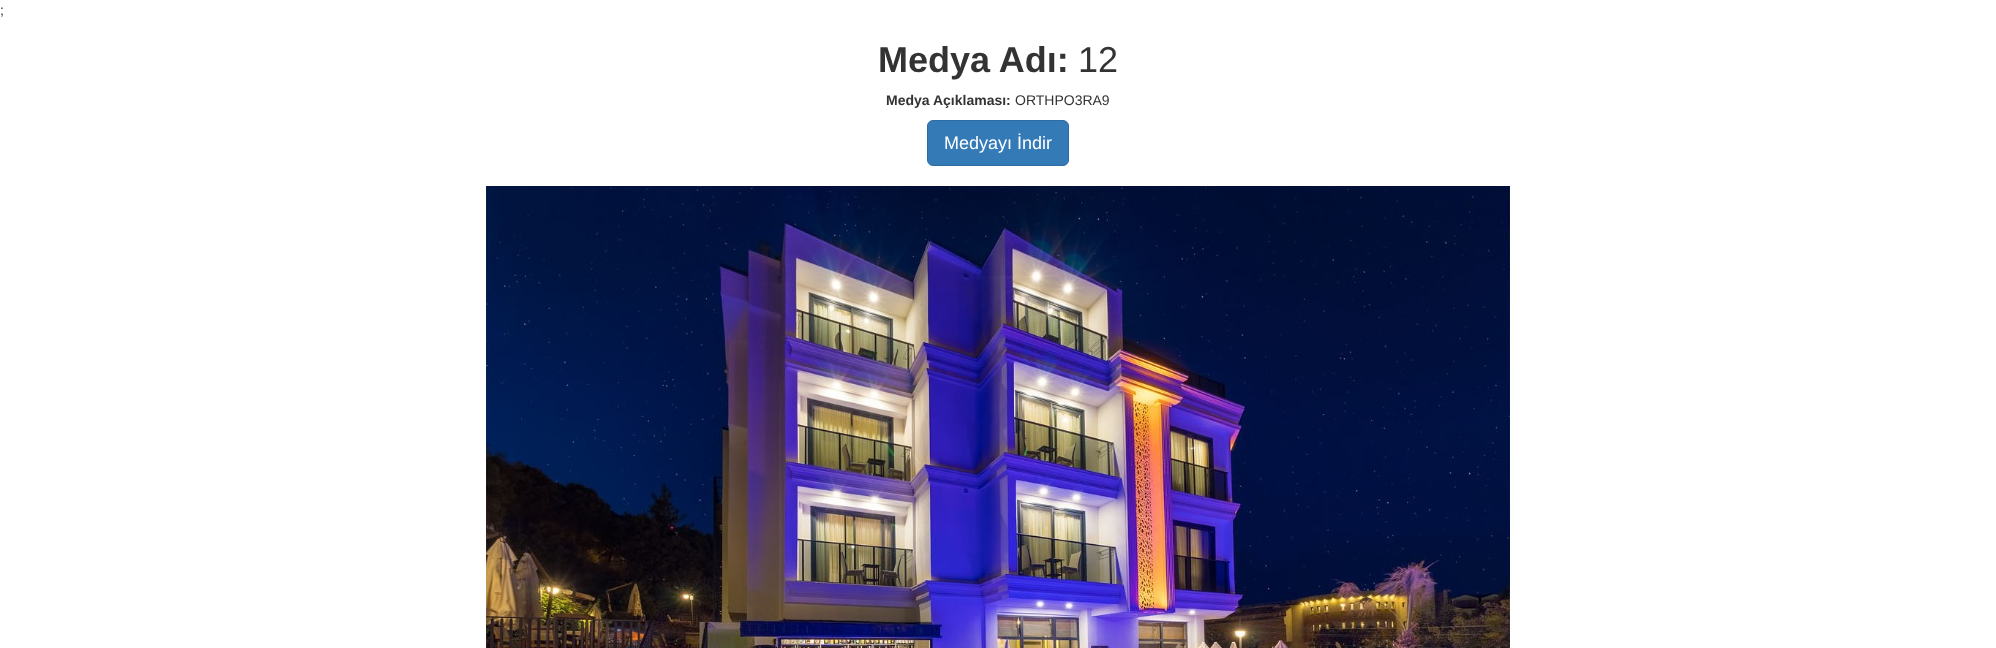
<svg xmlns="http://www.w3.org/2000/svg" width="1996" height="648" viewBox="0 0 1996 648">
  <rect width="100%" height="100%" fill="#ffffff"/>
  <text x="0" y="15" font-family="Liberation Sans" font-size="14" fill="#333333">;</text>
  <text x="878" y="72" font-family="Liberation Sans" font-size="36" font-weight="bold" fill="#333333">Medya Adı:</text>
  <text x="1078" y="72" font-family="Liberation Sans" font-size="36" fill="#333333">12</text>
  <text x="886" y="105" font-family="Liberation Sans" font-size="14" font-weight="bold" fill="#333333">Medya Açıklaması:</text>
  <text x="1015" y="105" font-family="Liberation Sans" font-size="14" fill="#333333">ORTHPO3RA9</text>
  <rect x="927.5" y="120.5" width="141" height="45" rx="5.5" fill="#337ab7" stroke="#2e6da4"/>
  <text x="944" y="149" font-family="Liberation Sans" font-size="18" fill="#ffffff">Medyayı İndir</text>
  <image x="486" y="186" width="1024" height="462" href="img1.png"/>
</svg>
